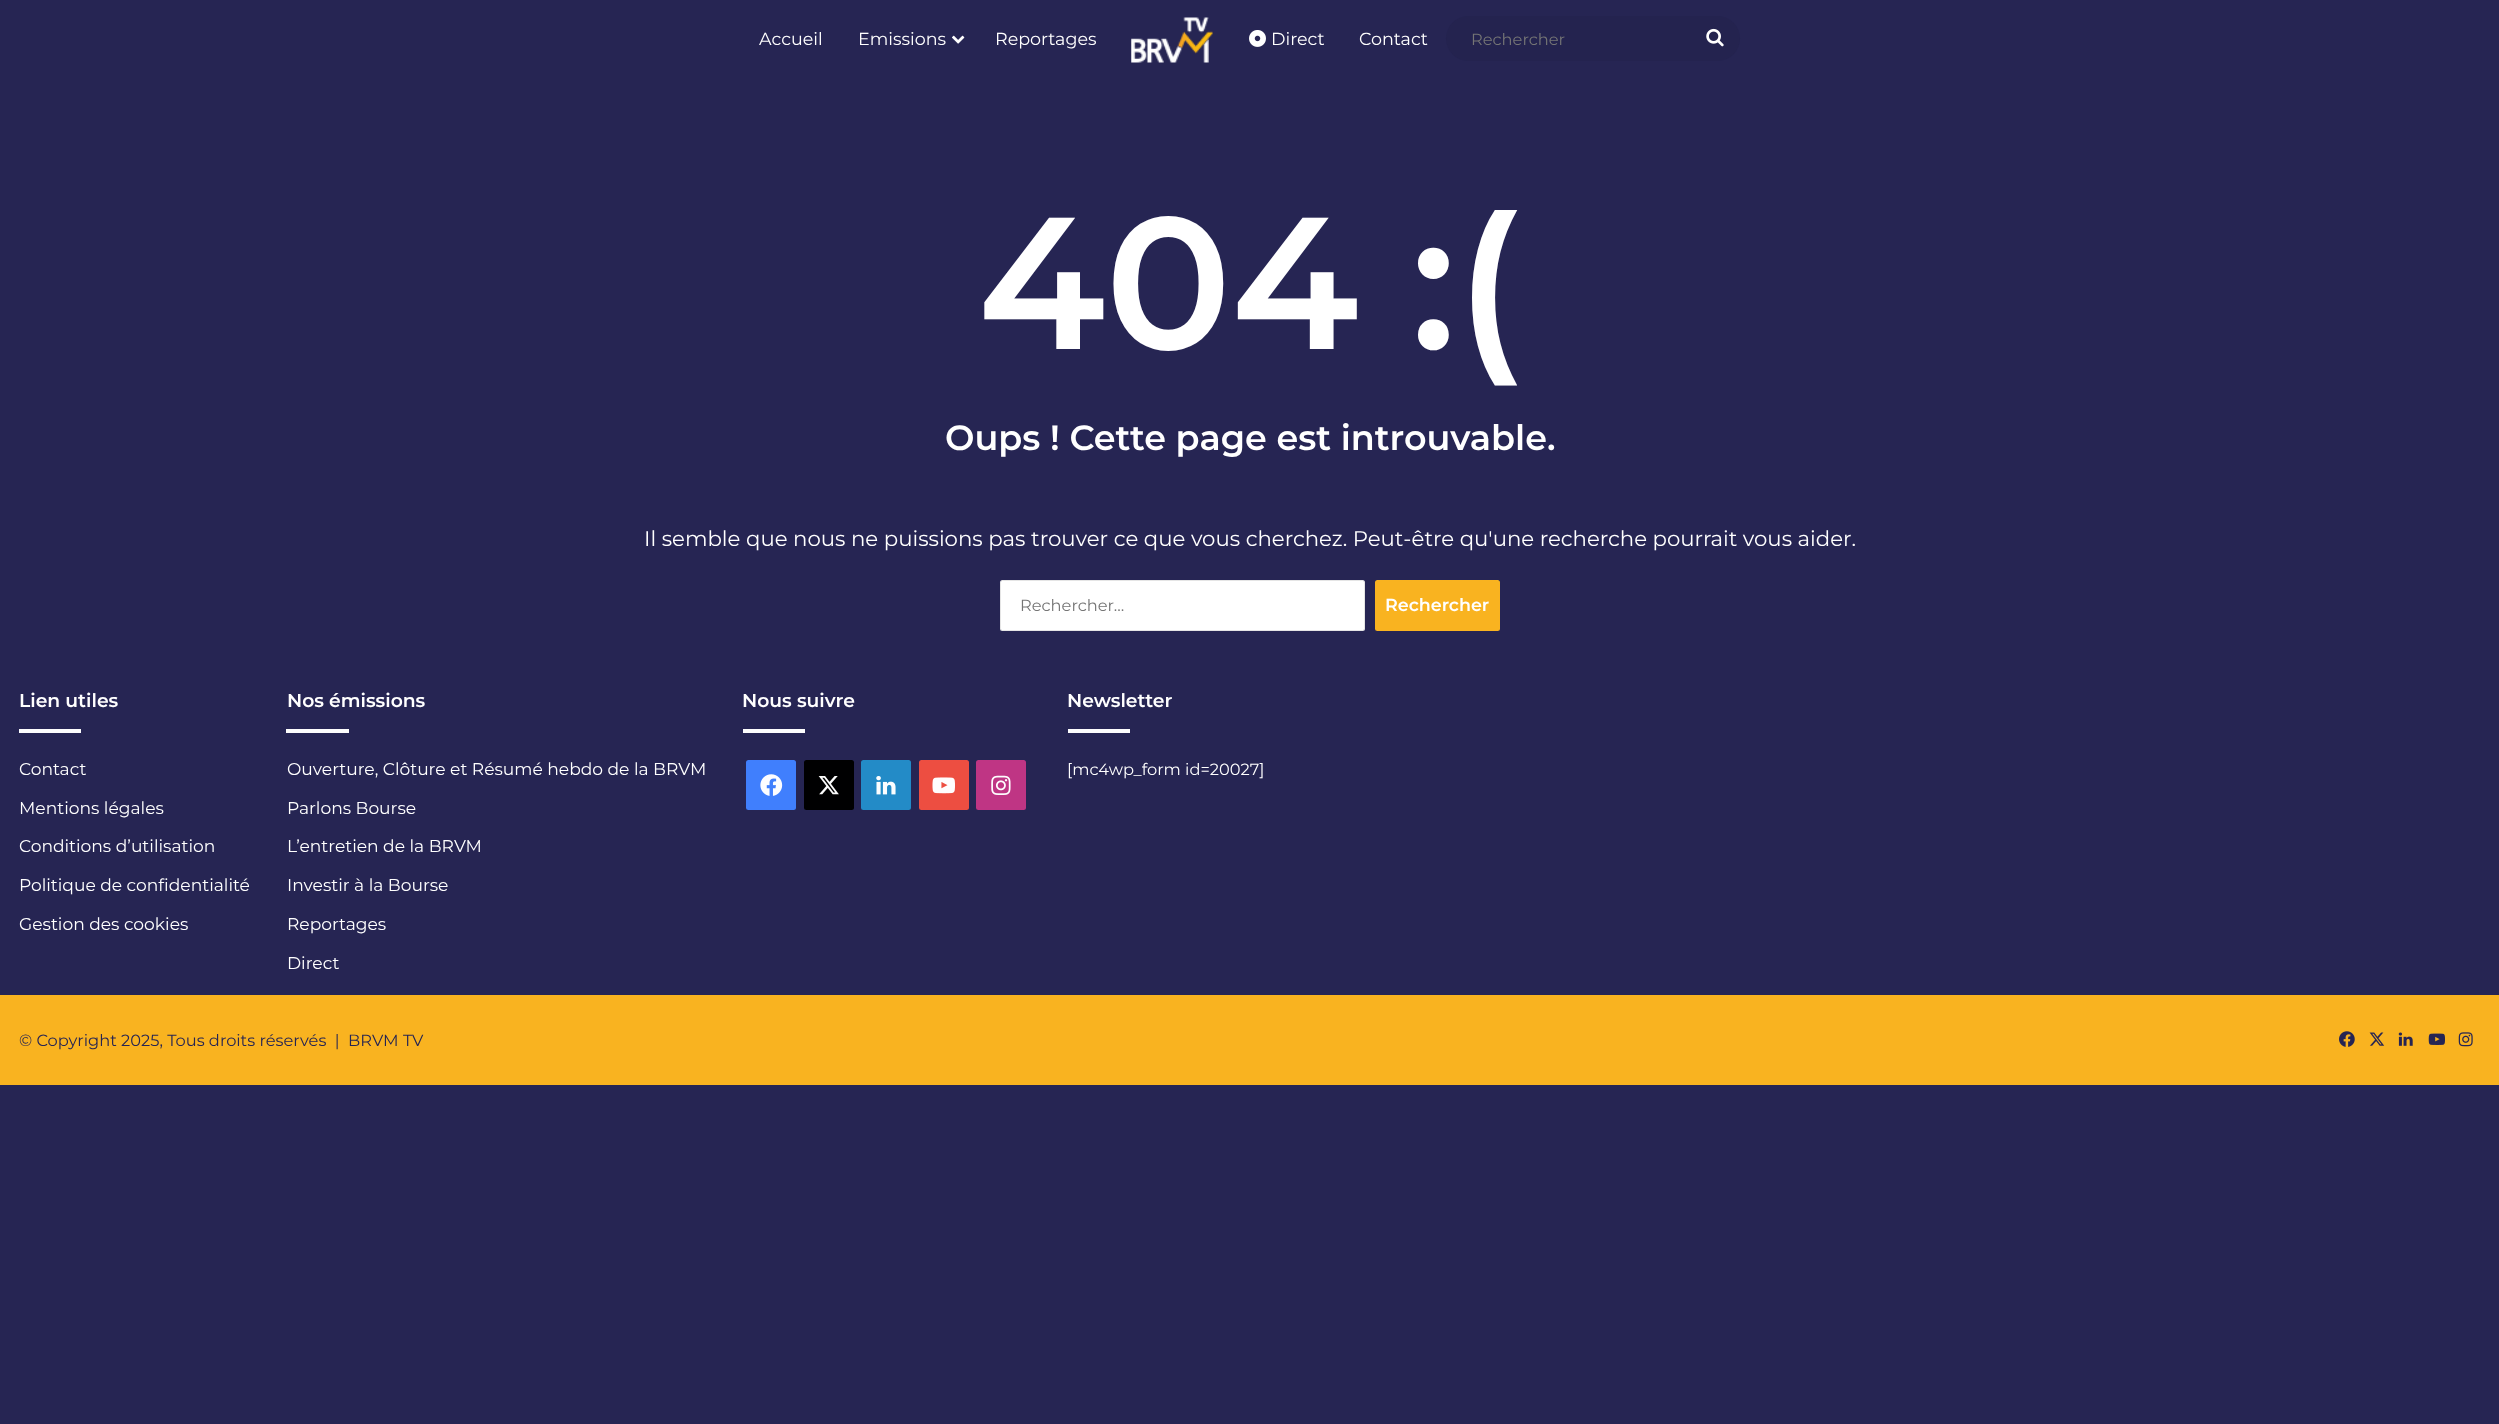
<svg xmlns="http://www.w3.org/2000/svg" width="2499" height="1424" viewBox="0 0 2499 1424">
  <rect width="100%" height="100%" fill="#262553"/>
  <text x="759" y="45" font-family="Montserrat" font-size="17.5" fill="#ffffff">Accueil</text>
  <text x="858" y="45" font-family="Montserrat" font-size="17.5" fill="#ffffff">Emissions</text>
  <image x="952" y="35" width="13" height="9" href="img1.png"/>
  <text x="995" y="45" font-family="Montserrat" font-size="17.5" fill="#ffffff">Reportages</text>
  <image x="1131" y="17" width="82" height="46" href="img2.png"/>
  <image x="1249" y="30" width="17" height="17" href="img3.png"/>
  <text x="1271" y="45" font-family="Montserrat" font-size="17.5" fill="#ffffff">Direct</text>
  <text x="1359" y="45" font-family="Montserrat" font-size="17.5" fill="#ffffff">Contact</text>
  <rect x="1446" y="16" width="294" height="45" rx="22.5" fill="#24234f"/>
  <text x="1471" y="45" font-family="Montserrat" font-size="16.25" fill="#757575">Rechercher</text>
  <image x="1706" y="28" width="18" height="19" href="img4.png"/>
  <text x="978" y="349" font-family="Montserrat" font-size="187.5" font-weight="600" fill="#ffffff">404 :(</text>
  <text x="945" y="450" font-family="Montserrat" font-size="35" font-weight="600" fill="#ffffff">Oups ! Cette page est introuvable.</text>
  <text x="644" y="546" font-family="Montserrat" font-size="21.25" fill="#ffffff">Il semble que nous ne puissions pas trouver ce que vous cherchez. Peut-être qu'une recherche pourrait vous aider.</text>
  <rect x="1000" y="580" width="365" height="51" rx="2.5" fill="#ffffff"/>
  <rect x="1000.5" y="580.5" width="364" height="50" rx="2" fill="none" stroke="#000000" stroke-opacity="0.1"/>
  <text x="1020" y="611" font-family="Montserrat" font-size="16.25" fill="#757575">Rechercher…</text>
  <rect x="1375" y="580" width="125" height="51" rx="2.5" fill="#f9b320"/>
  <text x="1385" y="611" font-family="Montserrat" font-size="17.5" font-weight="600" fill="#ffffff">Rechercher</text>
  <text x="19" y="707" font-family="Montserrat" font-size="18.75" font-weight="600" fill="#ffffff">Lien utiles</text>
  <rect x="19" y="729" width="62" height="4" fill="#fdfdfd"/>
  <text x="19" y="775" font-family="Montserrat" font-size="17.1" fill="#ffffff">Contact</text>
  <text x="19" y="814" font-family="Montserrat" font-size="17.1" fill="#ffffff">Mentions légales</text>
  <text x="19" y="852" font-family="Montserrat" font-size="17.1" fill="#ffffff">Conditions d’utilisation</text>
  <text x="19" y="891" font-family="Montserrat" font-size="17.1" fill="#ffffff">Politique de confidentialité</text>
  <text x="19" y="930" font-family="Montserrat" font-size="17.1" fill="#ffffff">Gestion des cookies</text>
  <text x="287" y="707" font-family="Montserrat" font-size="18.75" font-weight="600" fill="#ffffff">Nos émissions</text>
  <rect x="286" y="729" width="63" height="4" fill="#fdfdfd"/>
  <text x="287" y="775" font-family="Montserrat" font-size="17.1" fill="#ffffff">Ouverture, Clôture et Résumé hebdo de la BRVM</text>
  <text x="287" y="814" font-family="Montserrat" font-size="17.1" fill="#ffffff">Parlons Bourse</text>
  <text x="287" y="852" font-family="Montserrat" font-size="17.1" fill="#ffffff">L’entretien de la BRVM</text>
  <text x="287" y="891" font-family="Montserrat" font-size="17.1" fill="#ffffff">Investir à la Bourse</text>
  <text x="287" y="930" font-family="Montserrat" font-size="17.1" fill="#ffffff">Reportages</text>
  <text x="287" y="969" font-family="Montserrat" font-size="17.1" fill="#ffffff">Direct</text>
  <text x="742" y="707" font-family="Montserrat" font-size="18.75" font-weight="600" fill="#ffffff">Nous suivre</text>
  <rect x="743" y="729" width="62" height="4" fill="#fdfdfd"/>
  <rect x="746" y="760" width="50" height="50" rx="2.5" fill="#407ffd"/>
  <image x="760" y="774" width="23" height="22" href="img5.png"/>
  <rect x="804" y="760" width="50" height="50" rx="2.5" fill="#000001"/>
  <image x="818" y="776" width="21" height="19" href="img6.png"/>
  <rect x="861" y="760" width="50" height="50" rx="2.5" fill="#238bc7"/>
  <image x="876" y="776" width="20" height="19" href="img7.png"/>
  <rect x="919" y="760" width="50" height="50" rx="2.5" fill="#ed4e41"/>
  <image x="932" y="777" width="23" height="17" href="img8.png"/>
  <rect x="976" y="760" width="50" height="50" rx="2.5" fill="#bf3584"/>
  <image x="991" y="775" width="20" height="20" href="img9.png"/>
  <text x="1067" y="707" font-family="Montserrat" font-size="18.75" font-weight="600" fill="#ffffff">Newsletter</text>
  <rect x="1068" y="729" width="62" height="4" fill="#fdfdfd"/>
  <text x="1067" y="775" font-family="Montserrat" font-size="16.25" fill="#ffffff">[mc4wp_form id=20027]</text>
  <rect x="0" y="995" width="2499" height="90" fill="#f9b320"/>
  <text x="19" y="1046" font-family="Montserrat" font-size="16.25" fill="#262553" xml:space="preserve">© Copyright 2025, Tous droits réservés  |</text>
  <text x="348" y="1046" font-family="Montserrat" font-size="16.25" fill="#262553">BRVM TV</text>
  <image x="2339" y="1031" width="16" height="16" href="img10.png"/>
  <image x="2369" y="1032" width="16" height="14" href="img11.png"/>
  <image x="2398" y="1032" width="15" height="14" href="img12.png"/>
  <image x="2428" y="1033" width="17" height="12" href="img13.png"/>
  <image x="2458" y="1032" width="15" height="15" href="img14.png"/>
</svg>
